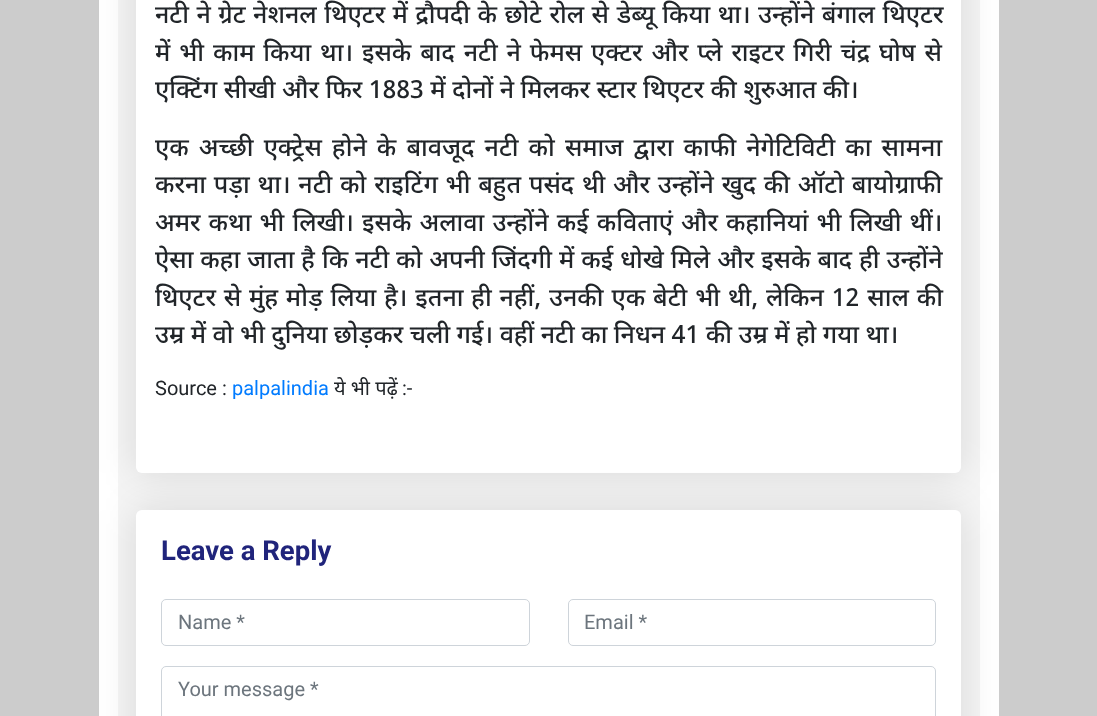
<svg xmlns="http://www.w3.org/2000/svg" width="1097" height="716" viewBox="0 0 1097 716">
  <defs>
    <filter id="blur1" x="-50%" y="-200%" width="200%" height="500%"><feGaussianBlur stdDeviation="19"/></filter>
  </defs>
  <rect width="100%" height="100%" fill="#cccccc"/>
  <rect x="99" y="0" width="900" height="716" fill="#ffffff"/>
  <rect x="118" y="0" width="862" height="716" fill="#f5f5f5"/>
  <rect x="136" y="-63" width="825" height="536" rx="6" fill="#1f2d3d" fill-opacity="0.12" filter="url(#blur1)"/>
  <rect x="136" y="-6" width="825" height="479" rx="6" fill="#ffffff"/>
  <text x="155" y="23" word-spacing="1" font-family="Noto Sans" font-size="25" font-weight="500" fill="#212529">नटी ने ग्रेट नेशनल थिएटर में द्रौपदी के छोटे रोल से डेब्यू किया था। उन्होंने बंगाल थिएटर</text>
  <text x="155" y="61" word-spacing="2.4" font-family="Noto Sans" font-size="25" font-weight="500" fill="#212529">में भी काम किया था। इसके बाद नटी ने फेमस एक्टर और प्ले राइटर गिरी चंद्र घोष से</text>
  <text x="155" y="98" font-family="Noto Sans" font-size="25" font-weight="500" fill="#212529">एक्टिंग सीखी और फिर 1883 में दोनों ने मिलकर स्टार थिएटर की शुरुआत की।</text>
  <text x="155" y="156" word-spacing="3.6" font-family="Noto Sans" font-size="25" font-weight="500" fill="#212529">एक अच्छी एक्ट्रेस होने के बावजूद नटी को समाज द्वारा काफी नेगेटिविटी का सामना</text>
  <text x="155" y="193" word-spacing="1.3" font-family="Noto Sans" font-size="25" font-weight="500" fill="#212529">करना पड़ा था। नटी को राइटिंग भी बहुत पसंद थी और उन्होंने खुद की ऑटो बायोग्राफी</text>
  <text x="155" y="231" word-spacing="1.6" font-family="Noto Sans" font-size="25" font-weight="500" fill="#212529">अमर कथा भी लिखी। इसके अलावा उन्होंने कई कविताएं और कहानियां भी लिखी थीं।</text>
  <text x="155" y="268" word-spacing="0.5" font-family="Noto Sans" font-size="25" font-weight="500" fill="#212529">ऐसा कहा जाता है कि नटी को अपनी जिंदगी में कई धोखे मिले और इसके बाद ही उन्होंने</text>
  <text x="155" y="306" word-spacing="1.4" font-family="Noto Sans" font-size="25" font-weight="500" fill="#212529">थिएटर से मुंह मोड़ लिया है। इतना ही नहीं, उनकी एक बेटी भी थी, लेकिन 12 साल की</text>
  <text x="155" y="343" font-family="Noto Sans" font-size="25" font-weight="500" fill="#212529">उम्र में वो भी दुनिया छोड़कर चली गई। वहीं नटी का निधन 41 की उम्र में हो गया था।</text>
  <text x="155" y="395" font-family="Roboto" font-size="20" fill="#212529">Source :</text>
  <text x="232" y="395" font-family="Roboto" font-size="20" fill="#007bff">palpalindia</text>
  <text x="334" y="395" font-family="Noto Sans" font-size="20" fill="#212529">ये भी पढ़ें</text>
  <text x="402" y="395" font-family="Roboto" font-size="20" fill="#212529">:-</text>
  <rect x="136" y="510" width="825" height="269" rx="6" fill="#1f2d3d" fill-opacity="0.12" filter="url(#blur1)"/>
  <rect x="136" y="510" width="825" height="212" rx="6" fill="#ffffff"/>
  <text x="161" y="560" font-family="Roboto" font-size="27.5" font-weight="bold" fill="#20247b">Leave a Reply</text>
  <rect x="161.5" y="599.5" width="368" height="46" rx="4.5" fill="none" stroke="#ced4da"/>
  <text x="178" y="629" font-family="Roboto" font-size="20" fill="#6c757d">Name *</text>
  <rect x="568.5" y="599.5" width="367" height="46" rx="4.5" fill="none" stroke="#ced4da"/>
  <text x="584" y="629" font-family="Roboto" font-size="20" fill="#6c757d">Email *</text>
  <rect x="161.5" y="666.5" width="774" height="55" rx="4.5" fill="none" stroke="#ced4da"/>
  <text x="178" y="696" font-family="Roboto" font-size="20" fill="#6c757d">Your message *</text>
</svg>
